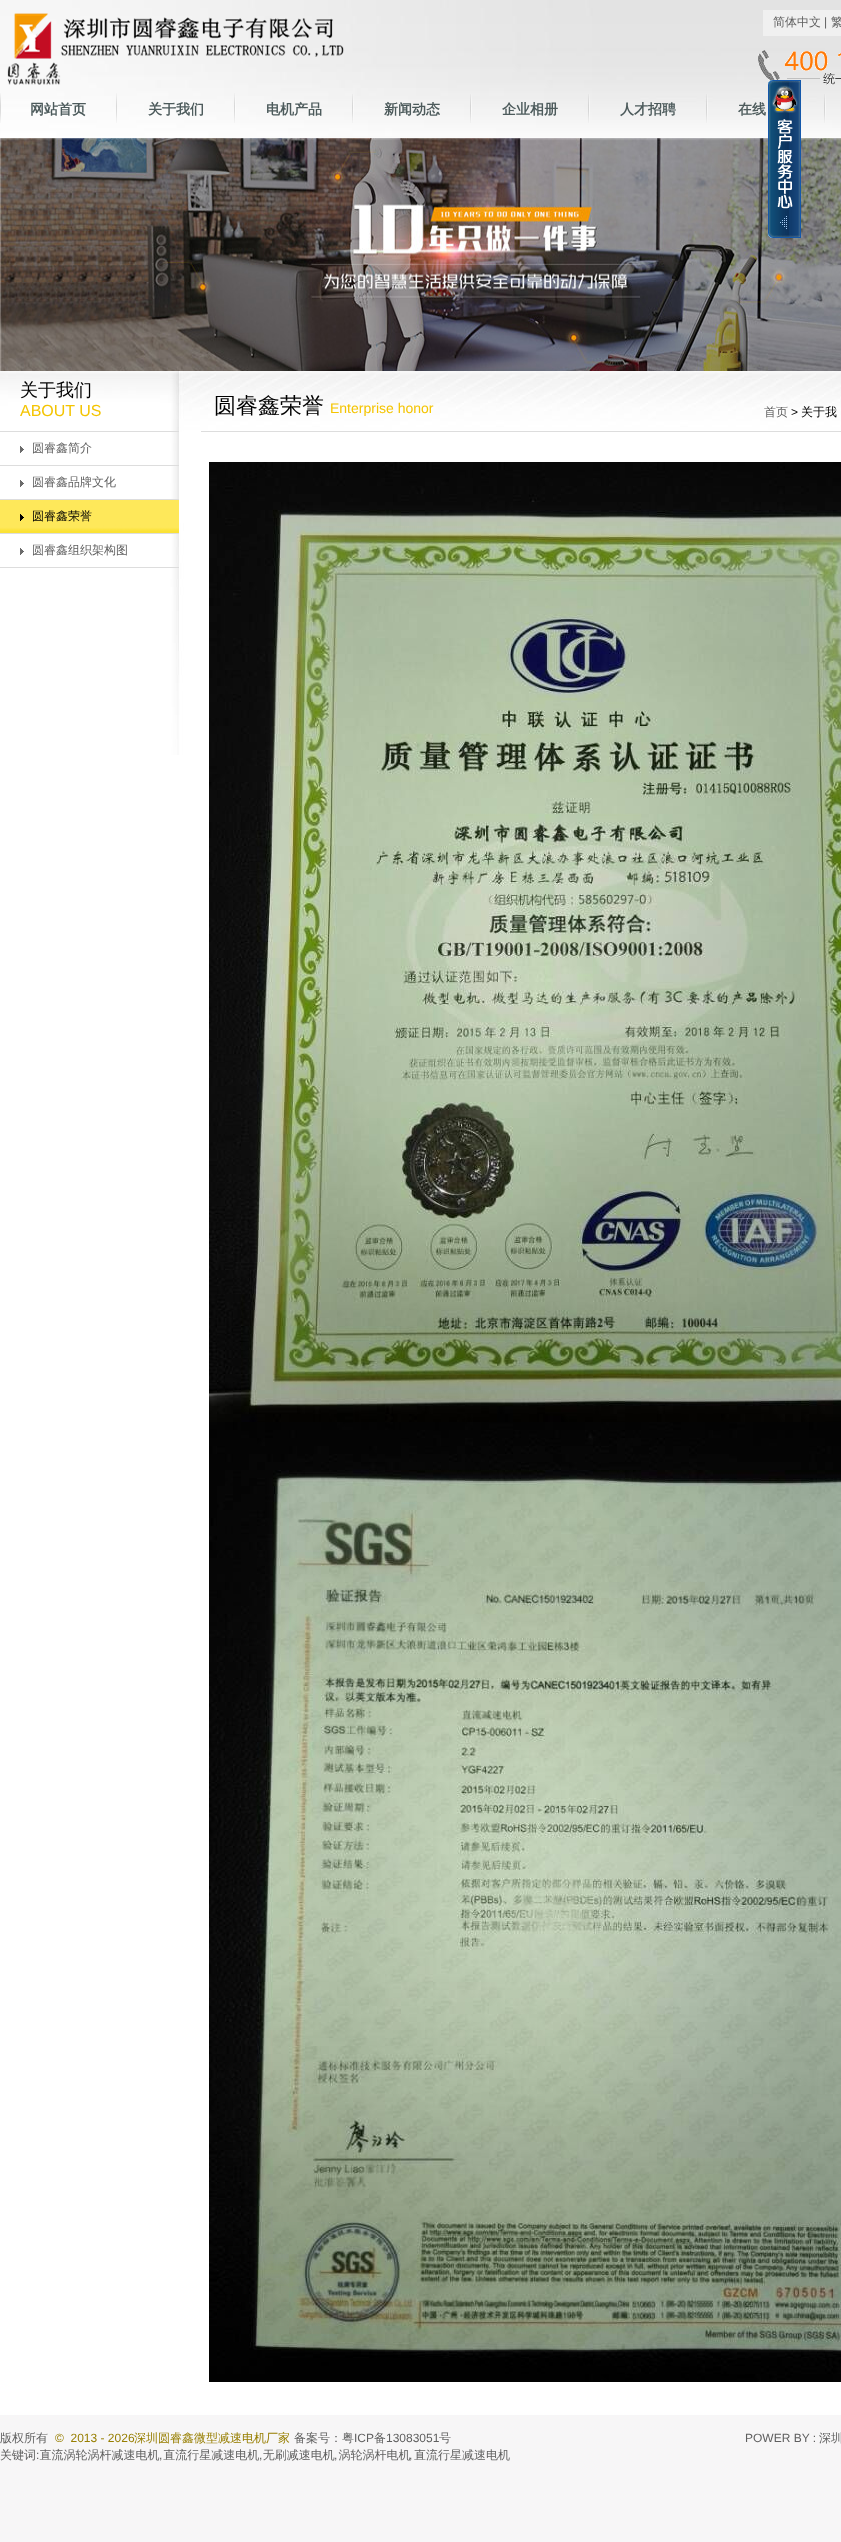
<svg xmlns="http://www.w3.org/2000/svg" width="841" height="2542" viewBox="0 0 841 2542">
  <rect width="100%" height="100%" fill="#f7f6f7"/>
  <image x="0" y="0" width="841" height="138" href="img1.png"/>
  <image x="7" y="13" width="337" height="72" href="img2.png"/>
  <rect x="763" y="10" width="78" height="26" fill="#f0f0f0"/>
  <text x="773" y="26" font-family="WenQuanYi Zen Hei" font-size="12" font-weight="500" fill="#5f5f5f">简体中文</text>
  <text x="824" y="26" font-family="Liberation Sans" font-size="12" fill="#5f5f5f">|</text>
  <text x="831" y="26" font-family="WenQuanYi Zen Hei" font-size="12" font-weight="500" fill="#5f5f5f">繁</text>
  <image x="758" y="50" width="83" height="35" href="img3.png"/>
  <image x="116" y="93" width="1" height="30" href="img4.png"/>
  <image x="0" y="93" width="1" height="30" href="img5.png"/>
  <text x="30" y="114" font-family="WenQuanYi Zen Hei" font-size="14" font-weight="bold" fill="#4d5b5c">网站首页</text>
  <image x="234" y="93" width="2" height="30" href="img6.png"/>
  <text x="148" y="114" font-family="WenQuanYi Zen Hei" font-size="14" font-weight="bold" fill="#4d5b5c">关于我们</text>
  <image x="352" y="94" width="2" height="29" href="img7.png"/>
  <text x="266" y="114" font-family="WenQuanYi Zen Hei" font-size="14" font-weight="bold" fill="#4d5b5c">电机产品</text>
  <image x="470" y="94" width="2" height="29" href="img8.png"/>
  <text x="384" y="114" font-family="WenQuanYi Zen Hei" font-size="14" font-weight="bold" fill="#4d5b5c">新闻动态</text>
  <image x="588" y="94" width="2" height="29" href="img9.png"/>
  <text x="502" y="114" font-family="WenQuanYi Zen Hei" font-size="14" font-weight="bold" fill="#4d5b5c">企业相册</text>
  <image x="706" y="94" width="2" height="29" href="img10.png"/>
  <text x="620" y="114" font-family="WenQuanYi Zen Hei" font-size="14" font-weight="bold" fill="#4d5b5c">人才招聘</text>
  <image x="824" y="94" width="2" height="29" href="img11.png"/>
  <text x="738" y="114" font-family="WenQuanYi Zen Hei" font-size="14" font-weight="bold" fill="#4d5b5c">在线</text>
  <image x="0" y="138" width="841" height="233" href="img13.png"/>
  <image x="768" y="80" width="33" height="158" href="img12.png"/>
  <rect x="0" y="755" width="841" height="1660" fill="#ffffff"/>
  <image x="0" y="371" width="841" height="384" href="img14.png"/>
  <rect x="0" y="431" width="179" height="1" fill="#dddddd"/>
  <text x="20" y="396" font-family="WenQuanYi Zen Hei" font-size="18" font-weight="500" fill="#000000">关于我们</text>
  <text x="20" y="416" font-family="Liberation Sans" font-size="16" fill="#f4c400">ABOUT US</text>
  <rect x="0" y="465" width="179" height="1" fill="#dddddd"/>
  <image x="20" y="446" width="4" height="7" href="img15.png"/>
  <text x="32" y="452" font-family="WenQuanYi Zen Hei" font-size="12" font-weight="500" fill="#5f5f5f">圆睿鑫简介</text>
  <rect x="0" y="499" width="179" height="1" fill="#dddddd"/>
  <image x="20" y="480" width="4" height="7" href="img15.png"/>
  <text x="32" y="486" font-family="WenQuanYi Zen Hei" font-size="12" font-weight="500" fill="#5f5f5f">圆睿鑫品牌文化</text>
  <rect x="0" y="533" width="179" height="1" fill="#dddddd"/>
  <image x="0" y="500" width="179" height="33" href="img16.png"/>
  <text x="32" y="520" font-family="WenQuanYi Zen Hei" font-size="12" font-weight="500" fill="#000000">圆睿鑫荣誉</text>
  <rect x="0" y="567" width="179" height="1" fill="#dddddd"/>
  <image x="20" y="548" width="4" height="7" href="img15.png"/>
  <text x="32" y="554" font-family="WenQuanYi Zen Hei" font-size="12" font-weight="500" fill="#5f5f5f">圆睿鑫组织架构图</text>
  <rect x="201" y="431" width="640" height="1" fill="#dddddd"/>
  <text x="214" y="413" font-family="WenQuanYi Zen Hei" font-size="22" font-weight="500" fill="#000000">圆睿鑫荣誉</text>
  <text x="330" y="413" font-family="Liberation Sans" font-size="14" fill="#f4c400">Enterprise honor</text>
  <text x="764" y="416" font-family="WenQuanYi Zen Hei" font-size="12" font-weight="500" fill="#5f5f5f">首页</text>
  <text x="791" y="416" font-family="Liberation Sans" font-size="12" fill="#000000">&gt;</text>
  <text x="801" y="416" font-family="WenQuanYi Zen Hei" font-size="12" font-weight="500" fill="#000000">关于我</text>
  <image x="209" y="462" width="632" height="960" href="img17.png"/>
  <image x="209" y="1422" width="632" height="960" href="img18.png"/>
  <text x="0" y="2442" font-family="WenQuanYi Zen Hei" font-size="12" font-weight="500" fill="#5f5f5f">版权所有</text>
  <text x="55" y="2442" font-family="Liberation Sans" font-size="12" fill="#977e01" xml:space="preserve">©  2013 - 2026</text>
  <text x="134" y="2442" font-family="WenQuanYi Zen Hei" font-size="12" font-weight="500" fill="#977e01">深圳圆睿鑫微型减速电机厂家</text>
  <text x="294" y="2442" font-family="WenQuanYi Zen Hei" font-size="12" font-weight="500" fill="#5f5f5f">备案号：粤</text>
  <text x="354" y="2442" font-family="Liberation Sans" font-size="12" fill="#5f5f5f">ICP</text>
  <text x="374" y="2442" font-family="WenQuanYi Zen Hei" font-size="12" font-weight="500" fill="#5f5f5f">备</text>
  <text x="386" y="2442" font-family="Liberation Sans" font-size="12" fill="#5f5f5f">13083051</text>
  <text x="439" y="2442" font-family="WenQuanYi Zen Hei" font-size="12" font-weight="500" fill="#5f5f5f">号</text>
  <text x="0" y="2459" font-family="WenQuanYi Zen Hei" font-size="12" font-weight="500" fill="#5f5f5f">关键词 直流涡轮涡杆减速电机 直流行星减速电机 无刷减速电机 涡轮涡杆电机 直流行星减速电机</text>
  <text x="36" y="2459" font-family="Liberation Sans" font-size="12" fill="#5f5f5f">:</text>
  <text x="159" y="2459" font-family="Liberation Sans" font-size="12" fill="#5f5f5f">,</text>
  <text x="259" y="2459" font-family="Liberation Sans" font-size="12" fill="#5f5f5f">,</text>
  <text x="334" y="2459" font-family="Liberation Sans" font-size="12" fill="#5f5f5f">,</text>
  <text x="409" y="2459" font-family="Liberation Sans" font-size="12" fill="#5f5f5f">,</text>
  <text x="745" y="2442" font-family="Liberation Sans" font-size="12" fill="#5f5f5f">POWER BY :</text>
  <text x="819" y="2442" font-family="WenQuanYi Zen Hei" font-size="12" font-weight="500" fill="#5f5f5f">深圳</text>
</svg>
